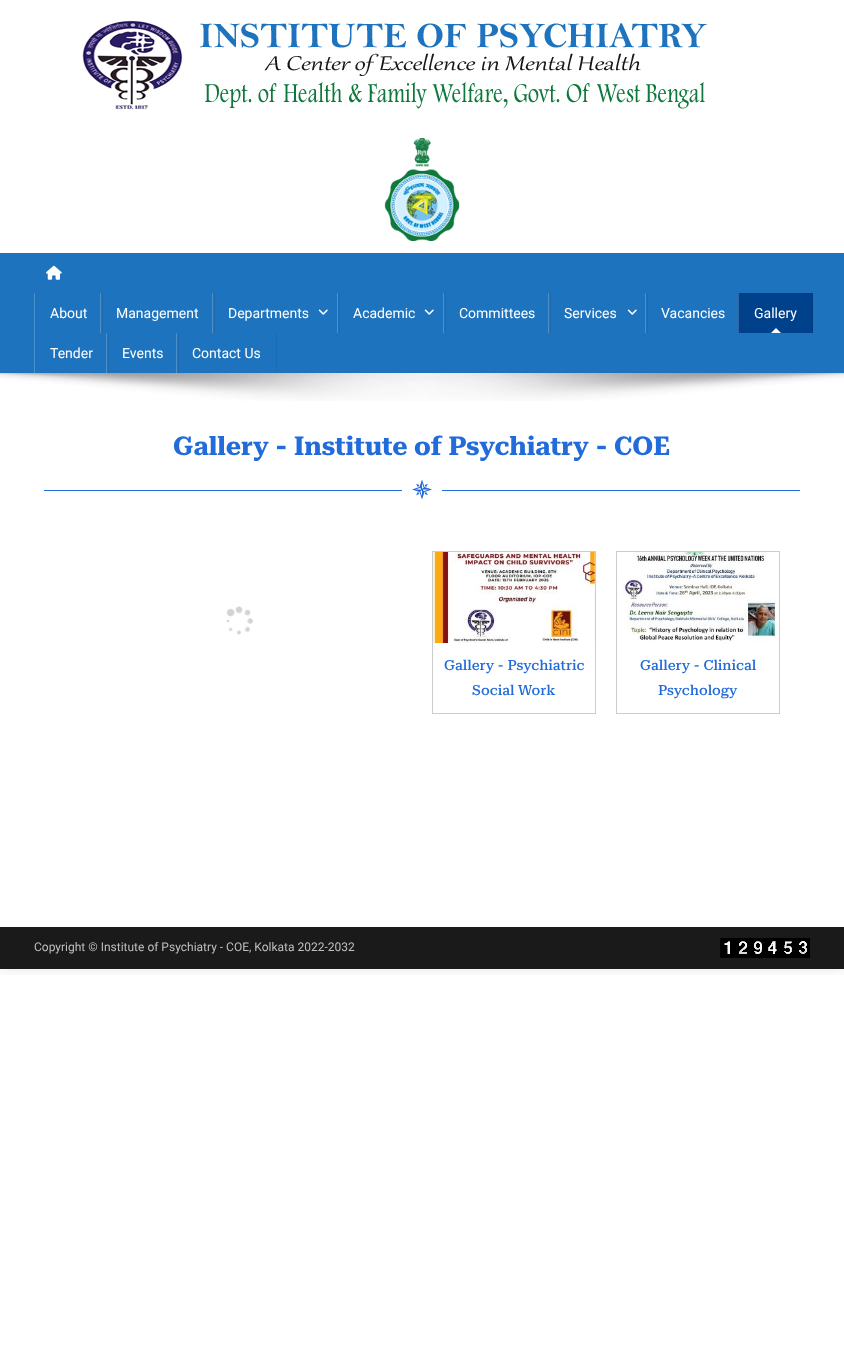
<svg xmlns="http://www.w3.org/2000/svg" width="844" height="1347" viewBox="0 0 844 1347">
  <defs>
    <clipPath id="clip1"><rect x="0" y="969" width="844" height="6"/></clipPath>
    <filter id="blur1" x="-50%" y="-200%" width="200%" height="500%"><feGaussianBlur stdDeviation="7.5"/></filter>
  </defs>
  <rect width="100%" height="100%" fill="#ffffff"/>
  <g clip-path="url(#clip1)">
    <rect x="0" y="0" width="844" height="969" fill="#000000" fill-opacity="0.1" filter="url(#blur1)"/>
  </g>
  <image x="82" y="20" width="625" height="90" href="img1.png"/>
  <image x="384" y="138" width="76" height="103" href="img2.png"/>
  <rect x="0" y="253" width="844" height="120" fill="#1e73be"/>
  <image x="46" y="265" width="16" height="15" href="img3.png"/>
  <rect x="102" y="293" width="1" height="40" fill="#1c6aaf"/>
  <rect x="34" y="293" width="1" height="80" fill="#4b8fcb"/>
  <text x="50" y="318" font-family="Roboto" font-size="14" fill="#ffffff">About</text>
  <rect x="214" y="293" width="1" height="40" fill="#1c6aaf"/>
  <rect x="100" y="293" width="1" height="40" fill="#4b8fcb"/>
  <text x="116" y="318" font-family="Roboto" font-size="14" fill="#ffffff">Management</text>
  <rect x="339" y="293" width="1" height="40" fill="#1c6aaf"/>
  <rect x="212" y="293" width="1" height="40" fill="#4b8fcb"/>
  <text x="228" y="318" font-family="Roboto" font-size="14" fill="#ffffff">Departments</text>
  <image x="318" y="309" width="10" height="6" href="img4.png"/>
  <rect x="445" y="293" width="1" height="40" fill="#1c6aaf"/>
  <rect x="337" y="293" width="1" height="40" fill="#4b8fcb"/>
  <text x="353" y="318" font-family="Roboto" font-size="14" fill="#ffffff">Academic</text>
  <image x="424" y="309" width="10" height="6" href="img4.png"/>
  <rect x="550" y="293" width="1" height="40" fill="#1c6aaf"/>
  <rect x="443" y="293" width="1" height="40" fill="#4b8fcb"/>
  <text x="459" y="318" font-family="Roboto" font-size="14" fill="#ffffff">Committees</text>
  <rect x="647" y="293" width="1" height="40" fill="#1c6aaf"/>
  <rect x="548" y="293" width="1" height="40" fill="#4b8fcb"/>
  <text x="564" y="318" font-family="Roboto" font-size="14" fill="#ffffff">Services</text>
  <image x="627" y="309" width="10" height="6" href="img4.png"/>
  <rect x="645" y="293" width="1" height="40" fill="#4b8fcb"/>
  <text x="661" y="318" font-family="Roboto" font-size="14" fill="#ffffff">Vacancies</text>
  <rect x="739" y="293" width="73" height="40" fill="#00418c"/>
  <rect x="812" y="293" width="1" height="40" fill="#003c81"/>
  <rect x="738" y="293" width="1" height="40" fill="#3367a3"/>
  <text x="754" y="318" font-family="Roboto" font-size="14" fill="#ffffff">Gallery</text>
  <path d="M781 333H771L776 328Z" fill="#ffffff"/>
  <rect x="108" y="333" width="1" height="40" fill="#1c6aaf"/>
  <text x="50" y="358" font-family="Roboto" font-size="14" fill="#ffffff">Tender</text>
  <rect x="178" y="333" width="1" height="40" fill="#1c6aaf"/>
  <rect x="106" y="333" width="1" height="40" fill="#4b8fcb"/>
  <text x="122" y="358" font-family="Roboto" font-size="14" fill="#ffffff">Events</text>
  <rect x="276" y="333" width="1" height="40" fill="#1c6aaf"/>
  <rect x="176" y="333" width="1" height="40" fill="#4b8fcb"/>
  <text x="192" y="358" font-family="Roboto" font-size="14" fill="#ffffff">Contact Us</text>
  <image x="0" y="373" width="844" height="28" href="img5.png"/>
  <text x="173" y="455" font-family="Roboto Serif" font-size="26" font-weight="bold" fill="#216bdb">Gallery - Institute of Psychiatry - COE</text>
  <rect x="44" y="490" width="358" height="1" fill="#216bdb"/>
  <image x="412" y="479" width="20" height="21" href="img6.png"/>
  <rect x="442" y="490" width="358" height="1" fill="#216bdb"/>
  <image x="226" y="606" width="27" height="29" href="img7.png"/>
  <rect x="432.5" y="551.5" width="163" height="162" fill="none" stroke="#cccccc"/>
  <image x="433" y="552" width="162" height="91" href="img8.png"/>
  <text x="444" y="670" font-family="Roboto Serif" font-size="14" font-weight="500" fill="#216bdb">Gallery - Psychiatric</text>
  <text x="472" y="695" font-family="Roboto Serif" font-size="14" font-weight="500" fill="#216bdb">Social Work</text>
  <rect x="616.5" y="551.5" width="163" height="162" fill="none" stroke="#cccccc"/>
  <image x="617" y="552" width="162" height="91" href="img9.png"/>
  <text x="640" y="670" font-family="Roboto Serif" font-size="14" font-weight="500" fill="#216bdb">Gallery - Clinical</text>
  <text x="658" y="695" font-family="Roboto Serif" font-size="14" font-weight="500" fill="#216bdb">Psychology</text>
  <rect x="0" y="927" width="844" height="42" fill="#1a1a1a"/>
  <text x="34" y="951" font-family="Roboto" font-size="12" fill="#bfbfbf">Copyright © Institute of Psychiatry - COE, Kolkata 2022-2032</text>
  <image x="720" y="938" width="15" height="20" href="img10.png"/>
  <image x="735" y="938" width="15" height="20" href="img11.png"/>
  <image x="750" y="938" width="15" height="20" href="img12.png"/>
  <image x="765" y="938" width="15" height="20" href="img13.png"/>
  <image x="780" y="938" width="15" height="20" href="img14.png"/>
  <image x="795" y="938" width="15" height="20" href="img15.png"/>
</svg>
